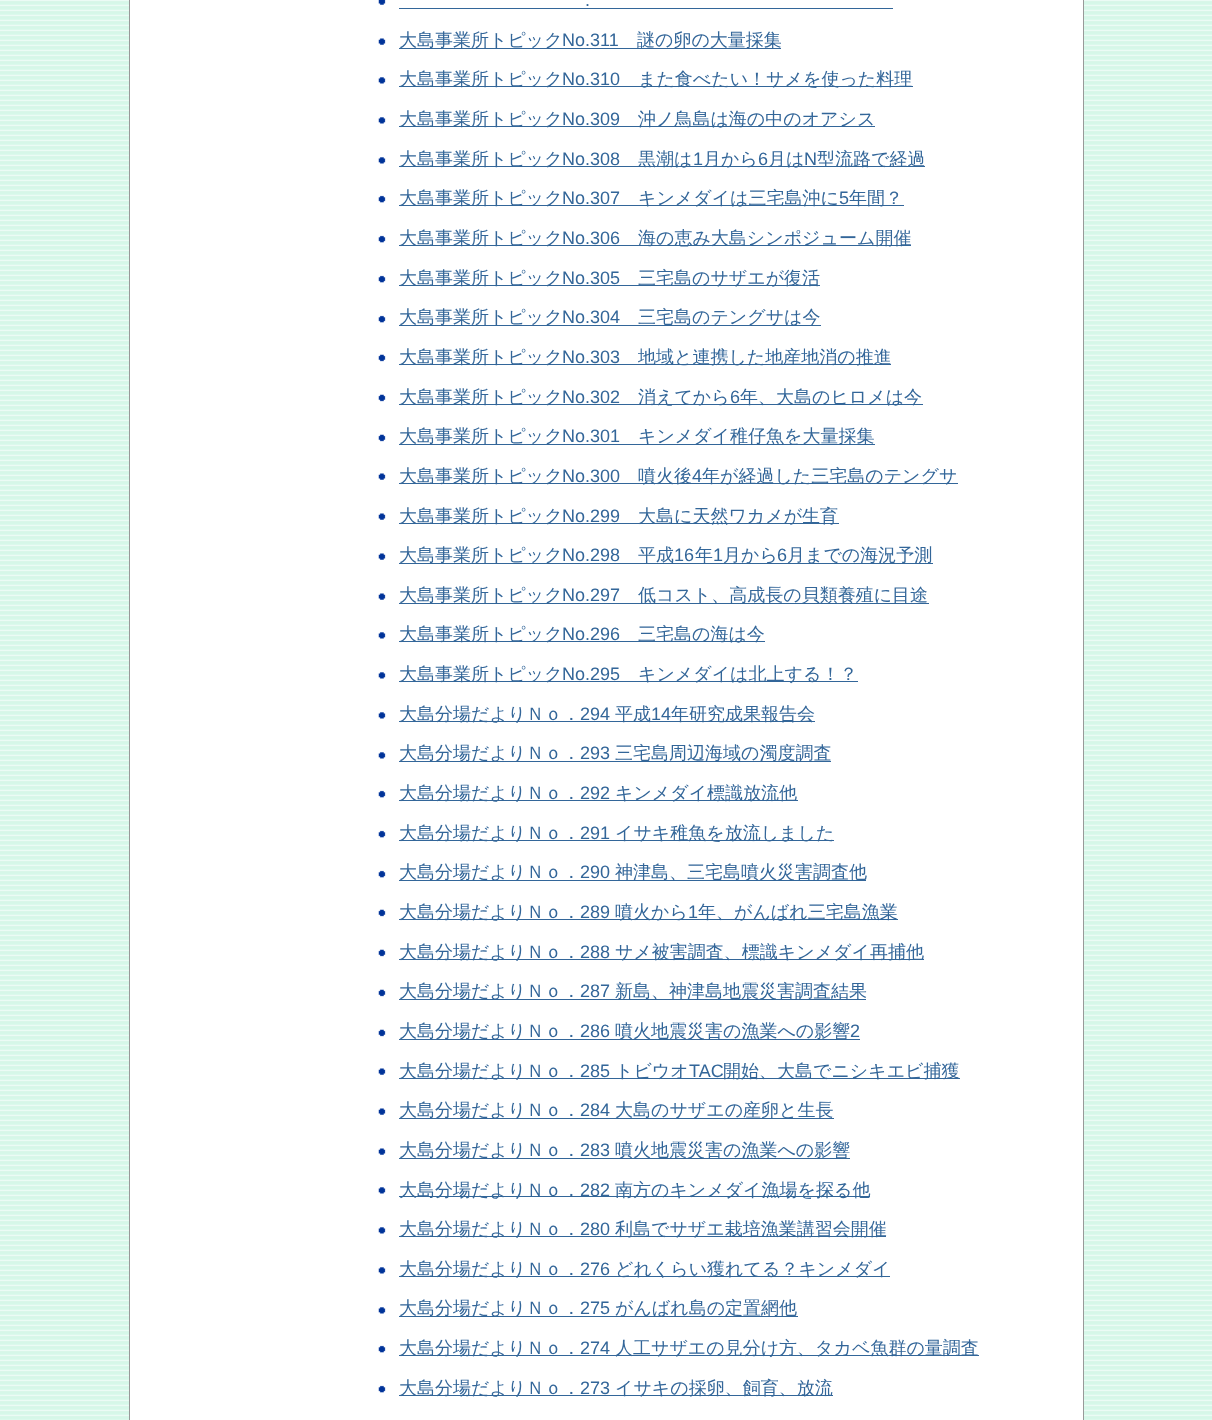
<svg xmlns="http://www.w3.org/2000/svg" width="1212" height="1420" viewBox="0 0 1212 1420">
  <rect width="100%" height="100%" fill="#ffffff"/>
  <image x="0" y="0" width="1212" height="1420" href="img1.png"/>
  <rect x="130" y="0" width="953" height="1420" fill="#ffffff"/>
  <rect x="1083" y="0" width="1" height="1420" fill="#999999"/>
  <rect x="129" y="0" width="1" height="1420" fill="#999999"/>
  <image x="378" y="0" width="8" height="5" href="img2.png"/>
  <text x="585" y="6" font-family="Liberation Sans" font-size="18" fill="#336699">.</text>
  <rect x="399" y="8" width="494" height="1" fill="#336699"/>
  <image x="378" y="38" width="8" height="7" href="img3.png"/>
  <rect x="399" y="48" width="382" height="1" fill="#336699"/>
  <text x="399" y="46" font-family="WenQuanYi Zen Hei" font-size="18" font-weight="500" fill="#336699">大島事業所トピック</text>
  <text x="562" y="46" font-family="Liberation Sans" font-size="18" fill="#336699">No.311</text>
  <text x="637" y="46" font-family="WenQuanYi Zen Hei" font-size="18" font-weight="500" fill="#336699">謎の卵の大量採集</text>
  <image x="378" y="77" width="8" height="7" href="img4.png"/>
  <rect x="399" y="86" width="514" height="1" fill="#336699"/>
  <text x="399" y="85" font-family="WenQuanYi Zen Hei" font-size="18" font-weight="500" fill="#336699">大島事業所トピック</text>
  <text x="562" y="85" font-family="Liberation Sans" font-size="18" fill="#336699">No.310</text>
  <text x="638" y="85" font-family="WenQuanYi Zen Hei" font-size="18" font-weight="500" fill="#336699">また食べたい！サメを使った料理</text>
  <image x="378" y="117" width="8" height="7" href="img4.png"/>
  <rect x="399" y="126" width="476" height="1" fill="#336699"/>
  <text x="399" y="125" font-family="WenQuanYi Zen Hei" font-size="18" font-weight="500" fill="#336699">大島事業所トピック</text>
  <text x="562" y="125" font-family="Liberation Sans" font-size="18" fill="#336699">No.309</text>
  <text x="638" y="125" font-family="WenQuanYi Zen Hei" font-size="18" font-weight="500" fill="#336699">沖ノ鳥島は海の中のオアシス</text>
  <image x="378" y="157" width="8" height="7" href="img4.png"/>
  <rect x="399" y="166" width="526" height="1" fill="#336699"/>
  <text x="399" y="165" font-family="WenQuanYi Zen Hei" font-size="18" font-weight="500" fill="#336699">大島事業所トピック</text>
  <text x="562" y="165" font-family="Liberation Sans" font-size="18" fill="#336699">No.308</text>
  <text x="638" y="165" font-family="WenQuanYi Zen Hei" font-size="18" font-weight="500" fill="#336699">黒潮は</text>
  <text x="693" y="165" font-family="Liberation Sans" font-size="18" fill="#336699">1</text>
  <text x="703" y="165" font-family="WenQuanYi Zen Hei" font-size="18" font-weight="500" fill="#336699">月から</text>
  <text x="758" y="165" font-family="Liberation Sans" font-size="18" fill="#336699">6</text>
  <text x="768" y="165" font-family="WenQuanYi Zen Hei" font-size="18" font-weight="500" fill="#336699">月は</text>
  <text x="804" y="165" font-family="Liberation Sans" font-size="18" fill="#336699">N</text>
  <text x="817" y="165" font-family="WenQuanYi Zen Hei" font-size="18" font-weight="500" fill="#336699">型流路で経過</text>
  <image x="378" y="195" width="8" height="8" href="img5.png"/>
  <rect x="399" y="205" width="505" height="1" fill="#336699"/>
  <text x="399" y="204" font-family="WenQuanYi Zen Hei" font-size="18" font-weight="500" fill="#336699">大島事業所トピック</text>
  <text x="562" y="204" font-family="Liberation Sans" font-size="18" fill="#336699">No.307</text>
  <text x="638" y="204" font-family="WenQuanYi Zen Hei" font-size="18" font-weight="500" fill="#336699">キンメダイは三宅島沖に</text>
  <text x="839" y="204" font-family="Liberation Sans" font-size="18" fill="#336699">5</text>
  <text x="849" y="204" font-family="WenQuanYi Zen Hei" font-size="18" font-weight="500" fill="#336699">年間？</text>
  <image x="378" y="235" width="8" height="8" href="img5.png"/>
  <rect x="399" y="245" width="512" height="1" fill="#336699"/>
  <text x="399" y="244" font-family="WenQuanYi Zen Hei" font-size="18" font-weight="500" fill="#336699">大島事業所トピック</text>
  <text x="562" y="244" font-family="Liberation Sans" font-size="18" fill="#336699">No.306</text>
  <text x="638" y="244" font-family="WenQuanYi Zen Hei" font-size="18" font-weight="500" fill="#336699">海の恵み大島シンポジューム開催</text>
  <image x="378" y="275" width="8" height="8" href="img5.png"/>
  <rect x="399" y="285" width="421" height="1" fill="#336699"/>
  <text x="399" y="284" font-family="WenQuanYi Zen Hei" font-size="18" font-weight="500" fill="#336699">大島事業所トピック</text>
  <text x="562" y="284" font-family="Liberation Sans" font-size="18" fill="#336699">No.305</text>
  <text x="638" y="284" font-family="WenQuanYi Zen Hei" font-size="18" font-weight="500" fill="#336699">三宅島のサザエが復活</text>
  <image x="378" y="315" width="8" height="8" href="img5.png"/>
  <rect x="399" y="325" width="422" height="1" fill="#336699"/>
  <text x="399" y="323" font-family="WenQuanYi Zen Hei" font-size="18" font-weight="500" fill="#336699">大島事業所トピック</text>
  <text x="562" y="323" font-family="Liberation Sans" font-size="18" fill="#336699">No.304</text>
  <text x="638" y="323" font-family="WenQuanYi Zen Hei" font-size="18" font-weight="500" fill="#336699">三宅島のテングサは今</text>
  <image x="378" y="354" width="8" height="8" href="img6.png"/>
  <rect x="399" y="364" width="492" height="1" fill="#336699"/>
  <text x="399" y="363" font-family="WenQuanYi Zen Hei" font-size="18" font-weight="500" fill="#336699">大島事業所トピック</text>
  <text x="562" y="363" font-family="Liberation Sans" font-size="18" fill="#336699">No.303</text>
  <text x="638" y="363" font-family="WenQuanYi Zen Hei" font-size="18" font-weight="500" fill="#336699">地域と連携した地産地消の推進</text>
  <image x="378" y="394" width="8" height="8" href="img6.png"/>
  <rect x="399" y="404" width="524" height="1" fill="#336699"/>
  <text x="399" y="403" font-family="WenQuanYi Zen Hei" font-size="18" font-weight="500" fill="#336699">大島事業所トピック</text>
  <text x="562" y="403" font-family="Liberation Sans" font-size="18" fill="#336699">No.302</text>
  <text x="638" y="403" font-family="WenQuanYi Zen Hei" font-size="18" font-weight="500" fill="#336699">消えてから</text>
  <text x="730" y="403" font-family="Liberation Sans" font-size="18" fill="#336699">6</text>
  <text x="740" y="403" font-family="WenQuanYi Zen Hei" font-size="18" font-weight="500" fill="#336699">年、大島のヒロメは今</text>
  <image x="378" y="434" width="8" height="8" href="img6.png"/>
  <rect x="399" y="444" width="476" height="1" fill="#336699"/>
  <text x="399" y="442" font-family="WenQuanYi Zen Hei" font-size="18" font-weight="500" fill="#336699">大島事業所トピック</text>
  <text x="562" y="442" font-family="Liberation Sans" font-size="18" fill="#336699">No.301</text>
  <text x="638" y="442" font-family="WenQuanYi Zen Hei" font-size="18" font-weight="500" fill="#336699">キンメダイ稚仔魚を大量採集</text>
  <image x="378" y="473" width="8" height="7" href="img3.png"/>
  <rect x="399" y="483" width="559" height="1" fill="#336699"/>
  <text x="399" y="482" font-family="WenQuanYi Zen Hei" font-size="18" font-weight="500" fill="#336699">大島事業所トピック</text>
  <text x="562" y="482" font-family="Liberation Sans" font-size="18" fill="#336699">No.300</text>
  <text x="638" y="482" font-family="WenQuanYi Zen Hei" font-size="18" font-weight="500" fill="#336699">噴火後</text>
  <text x="692" y="482" font-family="Liberation Sans" font-size="18" fill="#336699">4</text>
  <text x="702" y="482" font-family="WenQuanYi Zen Hei" font-size="18" font-weight="500" fill="#336699">年が経過した三宅島のテングサ</text>
  <image x="378" y="513" width="8" height="7" href="img3.png"/>
  <rect x="399" y="523" width="440" height="1" fill="#336699"/>
  <text x="399" y="522" font-family="WenQuanYi Zen Hei" font-size="18" font-weight="500" fill="#336699">大島事業所トピック</text>
  <text x="562" y="522" font-family="Liberation Sans" font-size="18" fill="#336699">No.299</text>
  <text x="638" y="522" font-family="WenQuanYi Zen Hei" font-size="18" font-weight="500" fill="#336699">大島に天然ワカメが生育</text>
  <image x="378" y="553" width="8" height="7" href="img3.png"/>
  <rect x="399" y="563" width="534" height="1" fill="#336699"/>
  <text x="399" y="561" font-family="WenQuanYi Zen Hei" font-size="18" font-weight="500" fill="#336699">大島事業所トピック</text>
  <text x="562" y="561" font-family="Liberation Sans" font-size="18" fill="#336699">No.298</text>
  <text x="638" y="561" font-family="WenQuanYi Zen Hei" font-size="18" font-weight="500" fill="#336699">平成</text>
  <text x="674" y="561" font-family="Liberation Sans" font-size="18" fill="#336699">16</text>
  <text x="695" y="561" font-family="WenQuanYi Zen Hei" font-size="18" font-weight="500" fill="#336699">年</text>
  <text x="713" y="561" font-family="Liberation Sans" font-size="18" fill="#336699">1</text>
  <text x="723" y="561" font-family="WenQuanYi Zen Hei" font-size="18" font-weight="500" fill="#336699">月から</text>
  <text x="777" y="561" font-family="Liberation Sans" font-size="18" fill="#336699">6</text>
  <text x="787" y="561" font-family="WenQuanYi Zen Hei" font-size="18" font-weight="500" fill="#336699">月までの海況予測</text>
  <image x="378" y="593" width="8" height="7" href="img3.png"/>
  <rect x="399" y="603" width="530" height="1" fill="#336699"/>
  <text x="399" y="601" font-family="WenQuanYi Zen Hei" font-size="18" font-weight="500" fill="#336699">大島事業所トピック</text>
  <text x="562" y="601" font-family="Liberation Sans" font-size="18" fill="#336699">No.297</text>
  <text x="638" y="601" font-family="WenQuanYi Zen Hei" font-size="18" font-weight="500" fill="#336699">低コスト、高成長の貝類養殖に目途</text>
  <image x="378" y="632" width="8" height="7" href="img4.png"/>
  <rect x="399" y="641" width="366" height="1" fill="#336699"/>
  <text x="399" y="640" font-family="WenQuanYi Zen Hei" font-size="18" font-weight="500" fill="#336699">大島事業所トピック</text>
  <text x="562" y="640" font-family="Liberation Sans" font-size="18" fill="#336699">No.296</text>
  <text x="638" y="640" font-family="WenQuanYi Zen Hei" font-size="18" font-weight="500" fill="#336699">三宅島の海は今</text>
  <image x="378" y="672" width="8" height="7" href="img4.png"/>
  <rect x="399" y="681" width="459" height="1" fill="#336699"/>
  <text x="399" y="680" font-family="WenQuanYi Zen Hei" font-size="18" font-weight="500" fill="#336699">大島事業所トピック</text>
  <text x="562" y="680" font-family="Liberation Sans" font-size="18" fill="#336699">No.295</text>
  <text x="638" y="680" font-family="WenQuanYi Zen Hei" font-size="18" font-weight="500" fill="#336699">キンメダイは北上する！？</text>
  <image x="378" y="712" width="8" height="7" href="img4.png"/>
  <rect x="399" y="721" width="416" height="1" fill="#336699"/>
  <text x="399" y="720" font-family="WenQuanYi Zen Hei" font-size="18" font-weight="500" fill="#336699">大島分場だよりＮｏ．</text>
  <text x="580" y="720" font-family="Liberation Sans" font-size="18" fill="#336699">294</text>
  <text x="615" y="720" font-family="WenQuanYi Zen Hei" font-size="18" font-weight="500" fill="#336699">平成</text>
  <text x="651" y="720" font-family="Liberation Sans" font-size="18" fill="#336699">14</text>
  <text x="671" y="720" font-family="WenQuanYi Zen Hei" font-size="18" font-weight="500" fill="#336699">年研究成果報告会</text>
  <image x="378" y="752" width="8" height="7" href="img4.png"/>
  <rect x="399" y="761" width="432" height="1" fill="#336699"/>
  <text x="399" y="759" font-family="WenQuanYi Zen Hei" font-size="18" font-weight="500" fill="#336699">大島分場だよりＮｏ．</text>
  <text x="580" y="759" font-family="Liberation Sans" font-size="18" fill="#336699">293</text>
  <text x="615" y="759" font-family="WenQuanYi Zen Hei" font-size="18" font-weight="500" fill="#336699">三宅島周辺海域の濁度調査</text>
  <image x="378" y="790" width="8" height="8" href="img5.png"/>
  <rect x="399" y="800" width="399" height="1" fill="#336699"/>
  <text x="399" y="799" font-family="WenQuanYi Zen Hei" font-size="18" font-weight="500" fill="#336699">大島分場だよりＮｏ．</text>
  <text x="580" y="799" font-family="Liberation Sans" font-size="18" fill="#336699">292</text>
  <text x="615" y="799" font-family="WenQuanYi Zen Hei" font-size="18" font-weight="500" fill="#336699">キンメダイ標識放流他</text>
  <image x="378" y="830" width="8" height="8" href="img5.png"/>
  <rect x="399" y="840" width="435" height="1" fill="#336699"/>
  <text x="399" y="839" font-family="WenQuanYi Zen Hei" font-size="18" font-weight="500" fill="#336699">大島分場だよりＮｏ．</text>
  <text x="580" y="839" font-family="Liberation Sans" font-size="18" fill="#336699">291</text>
  <text x="615" y="839" font-family="WenQuanYi Zen Hei" font-size="18" font-weight="500" fill="#336699">イサキ稚魚を放流しました</text>
  <image x="378" y="870" width="8" height="8" href="img5.png"/>
  <rect x="399" y="880" width="467" height="1" fill="#336699"/>
  <text x="399" y="878" font-family="WenQuanYi Zen Hei" font-size="18" font-weight="500" fill="#336699">大島分場だよりＮｏ．</text>
  <text x="580" y="878" font-family="Liberation Sans" font-size="18" fill="#336699">290</text>
  <text x="615" y="878" font-family="WenQuanYi Zen Hei" font-size="18" font-weight="500" fill="#336699">神津島、三宅島噴火災害調査他</text>
  <image x="378" y="909" width="8" height="8" href="img6.png"/>
  <rect x="399" y="919" width="499" height="1" fill="#336699"/>
  <text x="399" y="918" font-family="WenQuanYi Zen Hei" font-size="18" font-weight="500" fill="#336699">大島分場だよりＮｏ．</text>
  <text x="580" y="918" font-family="Liberation Sans" font-size="18" fill="#336699">289</text>
  <text x="615" y="918" font-family="WenQuanYi Zen Hei" font-size="18" font-weight="500" fill="#336699">噴火から</text>
  <text x="688" y="918" font-family="Liberation Sans" font-size="18" fill="#336699">1</text>
  <text x="698" y="918" font-family="WenQuanYi Zen Hei" font-size="18" font-weight="500" fill="#336699">年、がんばれ三宅島漁業</text>
  <image x="378" y="949" width="8" height="8" href="img6.png"/>
  <rect x="399" y="959" width="525" height="1" fill="#336699"/>
  <text x="399" y="958" font-family="WenQuanYi Zen Hei" font-size="18" font-weight="500" fill="#336699">大島分場だよりＮｏ．</text>
  <text x="580" y="958" font-family="Liberation Sans" font-size="18" fill="#336699">288</text>
  <text x="615" y="958" font-family="WenQuanYi Zen Hei" font-size="18" font-weight="500" fill="#336699">サメ被害調査、標識キンメダイ再捕他</text>
  <image x="378" y="989" width="8" height="8" href="img6.png"/>
  <rect x="399" y="999" width="467" height="1" fill="#336699"/>
  <text x="399" y="997" font-family="WenQuanYi Zen Hei" font-size="18" font-weight="500" fill="#336699">大島分場だよりＮｏ．</text>
  <text x="580" y="997" font-family="Liberation Sans" font-size="18" fill="#336699">287</text>
  <text x="615" y="997" font-family="WenQuanYi Zen Hei" font-size="18" font-weight="500" fill="#336699">新島、神津島地震災害調査結果</text>
  <image x="378" y="1029" width="8" height="8" href="img6.png"/>
  <rect x="399" y="1039" width="461" height="1" fill="#336699"/>
  <text x="399" y="1037" font-family="WenQuanYi Zen Hei" font-size="18" font-weight="500" fill="#336699">大島分場だよりＮｏ．</text>
  <text x="580" y="1037" font-family="Liberation Sans" font-size="18" fill="#336699">286</text>
  <text x="615" y="1037" font-family="WenQuanYi Zen Hei" font-size="18" font-weight="500" fill="#336699">噴火地震災害の漁業への影響</text>
  <text x="850" y="1037" font-family="Liberation Sans" font-size="18" fill="#336699">2</text>
  <image x="378" y="1068" width="8" height="7" href="img3.png"/>
  <rect x="399" y="1078" width="561" height="1" fill="#336699"/>
  <text x="399" y="1077" font-family="WenQuanYi Zen Hei" font-size="18" font-weight="500" fill="#336699">大島分場だよりＮｏ．</text>
  <text x="580" y="1077" font-family="Liberation Sans" font-size="18" fill="#336699">285</text>
  <text x="615" y="1077" font-family="WenQuanYi Zen Hei" font-size="18" font-weight="500" fill="#336699">トビウオ</text>
  <text x="689" y="1077" font-family="Liberation Sans" font-size="18" fill="#336699">TAC</text>
  <text x="723" y="1077" font-family="WenQuanYi Zen Hei" font-size="18" font-weight="500" fill="#336699">開始、大島でニシキエビ捕獲</text>
  <image x="378" y="1108" width="8" height="7" href="img3.png"/>
  <rect x="399" y="1118" width="435" height="1" fill="#336699"/>
  <text x="399" y="1116" font-family="WenQuanYi Zen Hei" font-size="18" font-weight="500" fill="#336699">大島分場だよりＮｏ．</text>
  <text x="580" y="1116" font-family="Liberation Sans" font-size="18" fill="#336699">284</text>
  <text x="615" y="1116" font-family="WenQuanYi Zen Hei" font-size="18" font-weight="500" fill="#336699">大島のサザエの産卵と生長</text>
  <image x="378" y="1148" width="8" height="7" href="img3.png"/>
  <rect x="399" y="1158" width="451" height="1" fill="#336699"/>
  <text x="399" y="1156" font-family="WenQuanYi Zen Hei" font-size="18" font-weight="500" fill="#336699">大島分場だよりＮｏ．</text>
  <text x="580" y="1156" font-family="Liberation Sans" font-size="18" fill="#336699">283</text>
  <text x="615" y="1156" font-family="WenQuanYi Zen Hei" font-size="18" font-weight="500" fill="#336699">噴火地震災害の漁業への影響</text>
  <image x="378" y="1187" width="8" height="7" href="img4.png"/>
  <rect x="399" y="1196" width="471" height="1" fill="#336699"/>
  <text x="399" y="1196" font-family="WenQuanYi Zen Hei" font-size="18" font-weight="500" fill="#336699">大島分場だよりＮｏ．</text>
  <text x="580" y="1196" font-family="Liberation Sans" font-size="18" fill="#336699">282</text>
  <text x="615" y="1196" font-family="WenQuanYi Zen Hei" font-size="18" font-weight="500" fill="#336699">南方のキンメダイ漁場を探る他</text>
  <image x="378" y="1227" width="8" height="7" href="img4.png"/>
  <rect x="399" y="1236" width="487" height="1" fill="#336699"/>
  <text x="399" y="1235" font-family="WenQuanYi Zen Hei" font-size="18" font-weight="500" fill="#336699">大島分場だよりＮｏ．</text>
  <text x="580" y="1235" font-family="Liberation Sans" font-size="18" fill="#336699">280</text>
  <text x="615" y="1235" font-family="WenQuanYi Zen Hei" font-size="18" font-weight="500" fill="#336699">利島でサザエ栽培漁業講習会開催</text>
  <image x="378" y="1267" width="8" height="7" href="img4.png"/>
  <rect x="399" y="1276" width="491" height="1" fill="#336699"/>
  <text x="399" y="1275" font-family="WenQuanYi Zen Hei" font-size="18" font-weight="500" fill="#336699">大島分場だよりＮｏ．</text>
  <text x="580" y="1275" font-family="Liberation Sans" font-size="18" fill="#336699">276</text>
  <text x="615" y="1275" font-family="WenQuanYi Zen Hei" font-size="18" font-weight="500" fill="#336699">どれくらい獲れてる？キンメダイ</text>
  <image x="378" y="1307" width="8" height="7" href="img4.png"/>
  <rect x="399" y="1316" width="399" height="1" fill="#336699"/>
  <text x="399" y="1314" font-family="WenQuanYi Zen Hei" font-size="18" font-weight="500" fill="#336699">大島分場だよりＮｏ．</text>
  <text x="580" y="1314" font-family="Liberation Sans" font-size="18" fill="#336699">275</text>
  <text x="615" y="1314" font-family="WenQuanYi Zen Hei" font-size="18" font-weight="500" fill="#336699">がんばれ島の定置網他</text>
  <image x="378" y="1345" width="8" height="8" href="img5.png"/>
  <rect x="399" y="1355" width="580" height="1" fill="#336699"/>
  <text x="399" y="1354" font-family="WenQuanYi Zen Hei" font-size="18" font-weight="500" fill="#336699">大島分場だよりＮｏ．</text>
  <text x="580" y="1354" font-family="Liberation Sans" font-size="18" fill="#336699">274</text>
  <text x="615" y="1354" font-family="WenQuanYi Zen Hei" font-size="18" font-weight="500" fill="#336699">人工サザエの見分け方、タカベ魚群の量調査</text>
  <image x="378" y="1385" width="8" height="8" href="img5.png"/>
  <rect x="399" y="1395" width="434" height="1" fill="#336699"/>
  <text x="399" y="1394" font-family="WenQuanYi Zen Hei" font-size="18" font-weight="500" fill="#336699">大島分場だよりＮｏ．</text>
  <text x="580" y="1394" font-family="Liberation Sans" font-size="18" fill="#336699">273</text>
  <text x="615" y="1394" font-family="WenQuanYi Zen Hei" font-size="18" font-weight="500" fill="#336699">イサキの採卵、飼育、放流</text>
</svg>
